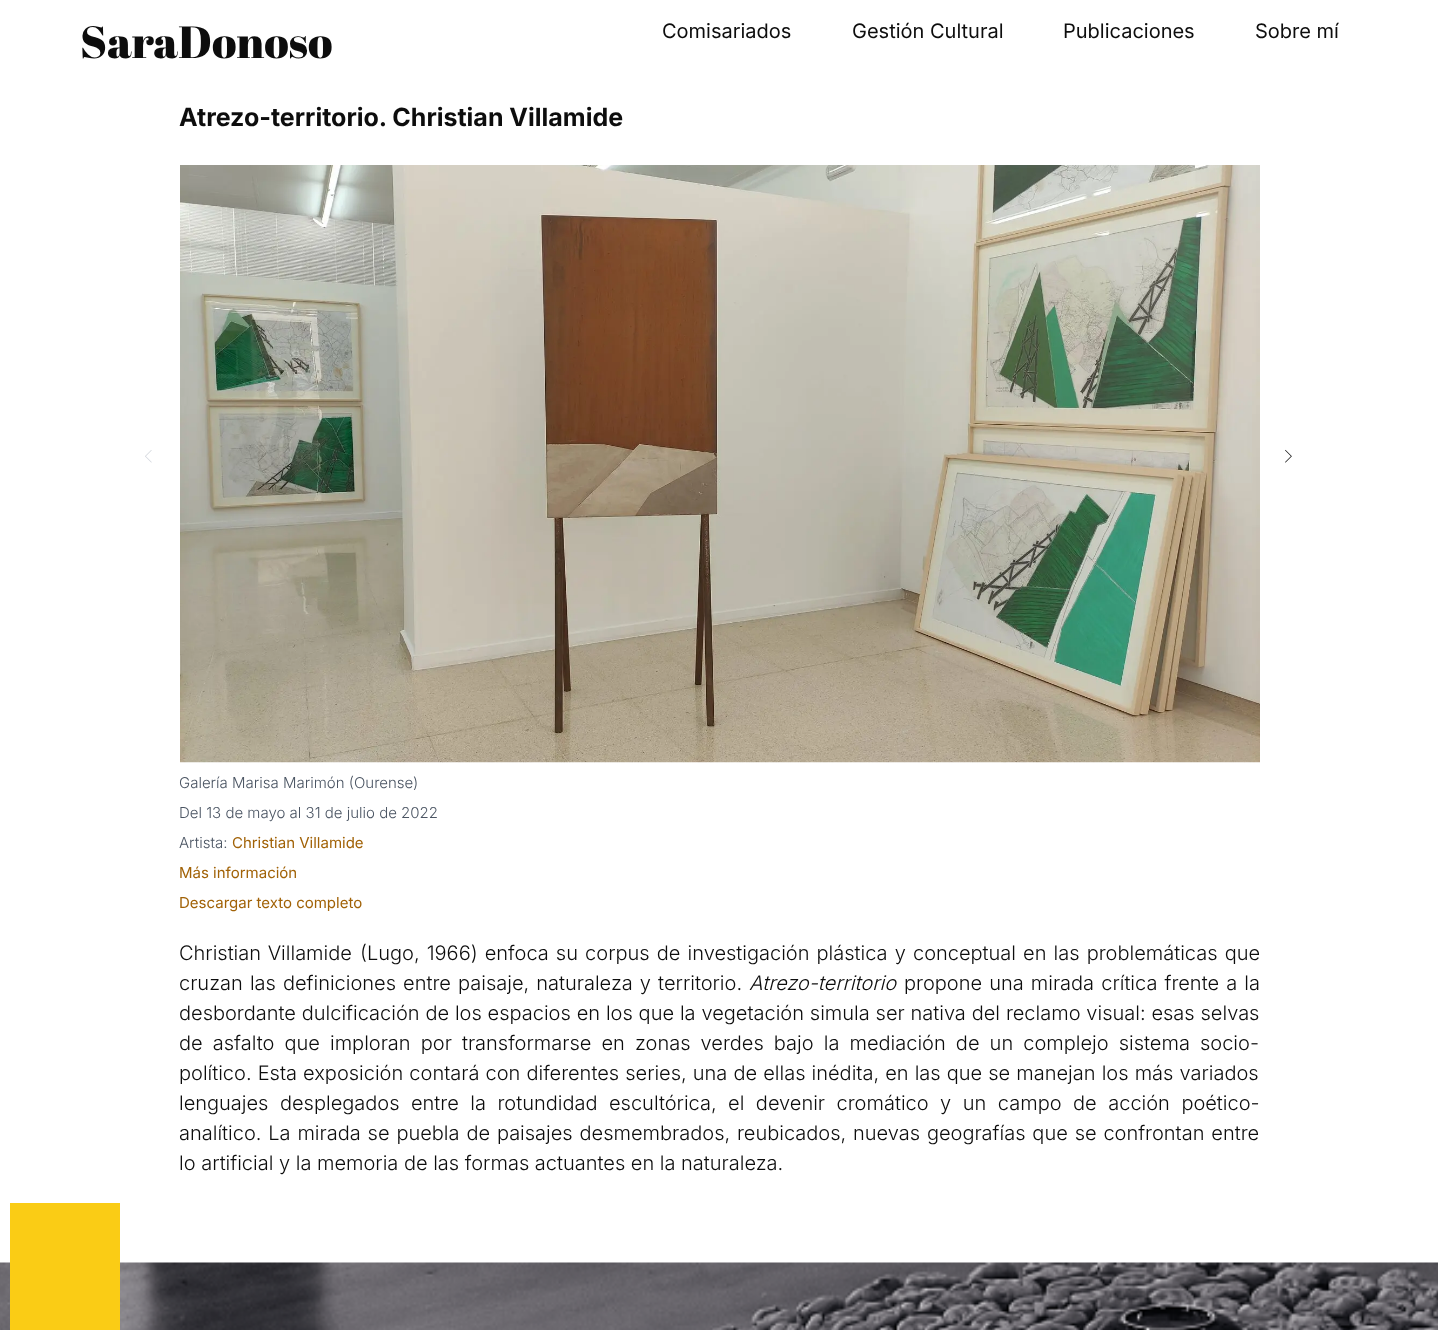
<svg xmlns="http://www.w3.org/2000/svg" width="1438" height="1330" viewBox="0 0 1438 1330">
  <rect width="100%" height="100%" fill="#ffffff"/>
  <text x="80" y="58" font-family="Abril Fatface" font-size="45" fill="#0d0d0d">SaraDonoso</text>
  <text x="662" y="38" font-family="Inter" font-size="20" fill="#0d0d0d">Comisariados</text>
  <text x="852" y="38" font-family="Inter" font-size="20" fill="#0d0d0d">Gestión Cultural</text>
  <text x="1063" y="38" font-family="Inter" font-size="20" fill="#0d0d0d">Publicaciones</text>
  <text x="1255" y="38" font-family="Inter" font-size="20" fill="#0d0d0d">Sobre mí</text>
  <text x="179" y="126" font-family="Inter" font-size="25" font-weight="bold" fill="#0d0d0d">Atrezo-territorio. Christian Villamide</text>
  <image x="145" y="450" width="7" height="13" href="img1.png"/>
  <image x="180" y="165" width="1080" height="598" href="img2.png"/>
  <image x="1285" y="449" width="7" height="14" href="img3.png"/>
  <text x="179" y="788" font-family="Inter" font-size="15" font-weight="300" fill="#4b5563">Galería Marisa Marimón (Ourense)</text>
  <text x="179" y="818" font-family="Inter" font-size="15" font-weight="300" fill="#4b5563">Del 13 de mayo al 31 de julio de 2022</text>
  <text x="179" y="848" font-family="Inter" font-size="15" font-weight="300" fill="#4b5563">Artista:</text>
  <text x="232" y="848" font-family="Inter" font-size="15" fill="#a16207">Christian Villamide</text>
  <text x="179" y="878" font-family="Inter" font-size="15" fill="#a16207">Más información</text>
  <text x="179" y="908" font-family="Inter" font-size="15" fill="#a16207">Descargar texto completo</text>
  <text x="179" y="960" word-spacing="1" font-family="Inter" font-size="20" font-weight="300" fill="#0d0d0d">Christian Villamide</text>
  <text x="360" y="960" word-spacing="1.5" font-family="Inter" font-size="20" font-weight="300" fill="#0d0d0d">(Lugo, 1966) enfoca su corpus de investigación plástica y conceptual en las problemáticas que</text>
  <text x="179" y="990" word-spacing="1.5" font-family="Inter" font-size="20" font-weight="300" fill="#0d0d0d">cruzan las definiciones entre paisaje, naturaleza y territorio.</text>
  <text x="749" y="990" font-family="Inter" font-size="20" font-weight="300" font-style="italic" fill="#0d0d0d">Atrezo-territorio</text>
  <text x="904" y="990" word-spacing="1.5" font-family="Inter" font-size="20" font-weight="300" fill="#0d0d0d">propone una mirada crítica frente a la</text>
  <text x="179" y="1020" word-spacing="0.25" font-family="Inter" font-size="20" font-weight="300" fill="#0d0d0d">desbordante dulcificación de los espacios en los que la vegetación simula ser nativa del reclamo visual: esas selvas</text>
  <text x="179" y="1050" word-spacing="4.5" font-family="Inter" font-size="20" font-weight="300" fill="#0d0d0d">de asfalto que imploran por transformarse en zonas verdes bajo la mediación de un complejo sistema socio-</text>
  <text x="179" y="1080" word-spacing="0.5" font-family="Inter" font-size="20" font-weight="300" fill="#0d0d0d">político. Esta exposición contará con diferentes series, una de ellas inédita, en las que se manejan los más variados</text>
  <text x="179" y="1110" word-spacing="5.9" font-family="Inter" font-size="20" font-weight="300" fill="#0d0d0d">lenguajes desplegados entre la rotundidad escultórica, el devenir cromático y un campo de acción poético-</text>
  <text x="179" y="1140" word-spacing="1.25" font-family="Inter" font-size="20" font-weight="300" fill="#0d0d0d">analítico. La mirada se puebla de paisajes desmembrados, reubicados, nuevas geografías que se confrontan entre</text>
  <text x="179" y="1170" font-family="Inter" font-size="20" font-weight="300" fill="#0d0d0d">lo artificial y la memoria de las formas actuantes en la naturaleza.</text>
  <image x="0" y="1262" width="1438" height="68" href="img4.png"/>
  <rect x="10" y="1203" width="110" height="127" fill="#facc15"/>
</svg>
